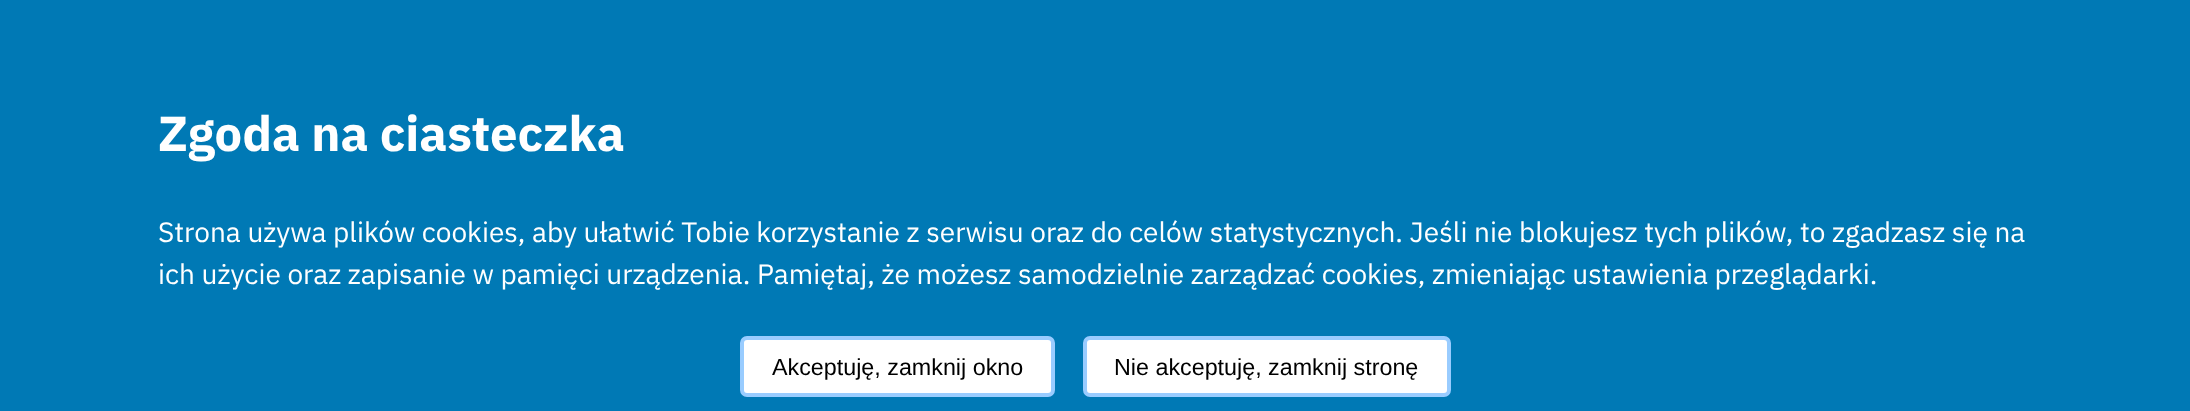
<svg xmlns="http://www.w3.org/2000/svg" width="2190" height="411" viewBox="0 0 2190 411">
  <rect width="100%" height="100%" fill="#0079b5"/>
  <text x="158" y="151" font-family="IBM Plex Sans" font-size="49" font-weight="bold" fill="#ffffff">Zgoda na ciasteczka</text>
  <text x="158" y="242" font-family="IBM Plex Sans" font-size="28" fill="#ffffff">Strona używa plików cookies, aby ułatwić Tobie korzystanie z serwisu oraz do celów statystycznych. Jeśli nie blokujesz tych plików, to zgadzasz się na</text>
  <text x="158" y="284" font-family="IBM Plex Sans" font-size="28" fill="#ffffff">ich użycie oraz zapisanie w pamięci urządzenia. Pamiętaj, że możesz samodzielnie zarządzać cookies, zmieniając ustawienia przeglądarki.</text>
  <rect x="742" y="338" width="311" height="57" rx="5" fill="#ffffff" stroke="#99ccff" stroke-width="4"/>
  <text x="772" y="375" font-family="Liberation Sans" font-size="23.3" fill="#000000">Akceptuję, zamknij okno</text>
  <rect x="1085" y="338" width="364" height="57" rx="5" fill="#ffffff" stroke="#99ccff" stroke-width="4"/>
  <text x="1114" y="375" font-family="Liberation Sans" font-size="23.3" fill="#000000">Nie akceptuję, zamknij stronę</text>
</svg>
